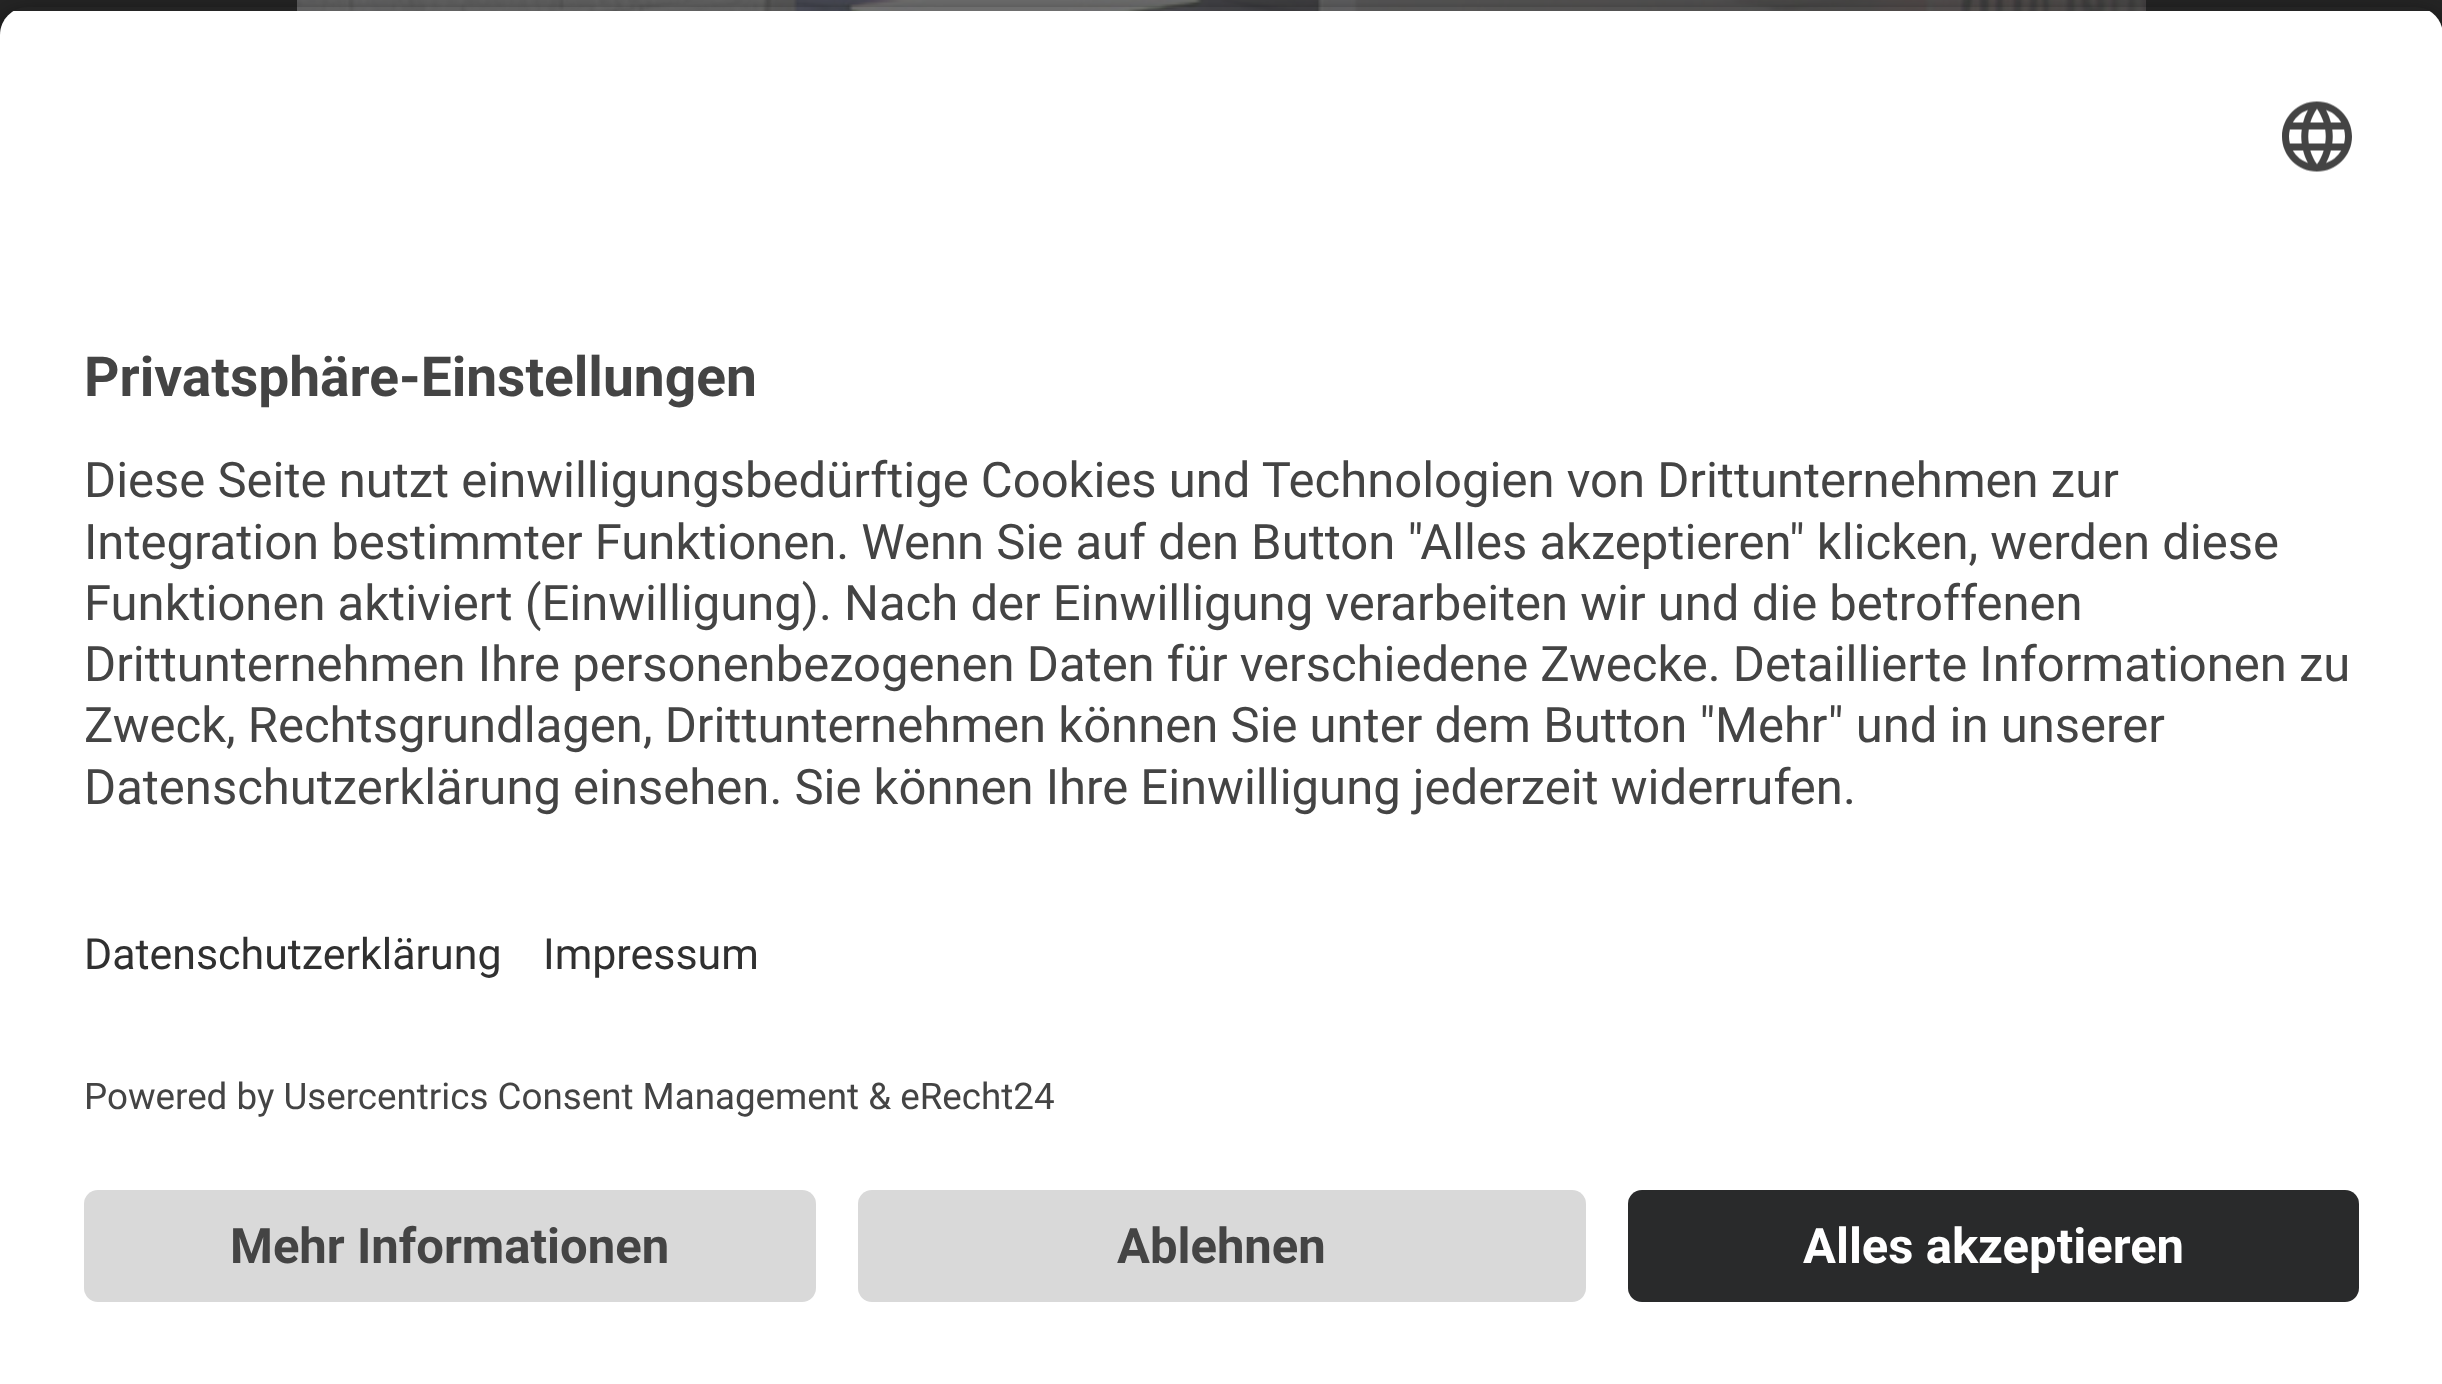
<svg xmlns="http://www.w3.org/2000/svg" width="2442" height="1384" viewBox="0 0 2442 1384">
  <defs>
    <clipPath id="clip1"><path d="M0 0H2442V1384H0ZM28 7H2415C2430.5 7 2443 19.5 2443 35V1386H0V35C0 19.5 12.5 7 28 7Z" clip-rule="evenodd"/></clipPath>
    <filter id="blur1" x="-50%" y="-200%" width="200%" height="500%"><feGaussianBlur stdDeviation="12"/></filter>
    <clipPath id="clip2"><path d="M28 7H2415C2430.5 7 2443 19.5 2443 35V833H0V35C0 19.5 12.5 7 28 7Z"/></clipPath>
  </defs>
  <rect width="100%" height="100%" fill="#242424"/>
  <image x="297" y="0" width="1849" height="11" href="img1.png"/>
  <g clip-path="url(#clip1)">
    <rect x="0" y="18" width="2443" height="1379" rx="28" fill="#000000" fill-opacity="0.8" filter="url(#blur1)"/>
  </g>
  <g clip-path="url(#clip2)">
    <rect x="0" y="11" width="2442" height="822" fill="#ffffff"/>
  </g>
  <image x="2282" y="101" width="70" height="71" href="img2.png"/>
  <text x="84" y="396" font-family="Roboto" font-size="55.1" font-weight="bold" fill="#444444">Privatsphäre-Einstellungen</text>
  <text x="84" y="497" font-family="Roboto" font-size="49" fill="#444444">Diese Seite nutzt einwilligungsbedürftige Cookies und Technologien von Drittunternehmen zur</text>
  <text x="84" y="559" font-family="Roboto" font-size="49" fill="#444444">Integration bestimmter Funktionen. Wenn Sie auf den Button "Alles akzeptieren" klicken, werden diese</text>
  <text x="84" y="620" font-family="Roboto" font-size="49" fill="#444444">Funktionen aktiviert (Einwilligung). Nach der Einwilligung verarbeiten wir und die betroffenen</text>
  <text x="84" y="681" font-family="Roboto" font-size="49" fill="#444444">Drittunternehmen Ihre personenbezogenen Daten für verschiedene Zwecke. Detaillierte Informationen zu</text>
  <text x="84" y="742" font-family="Roboto" font-size="49" fill="#444444">Zweck, Rechtsgrundlagen, Drittunternehmen können Sie unter dem Button "Mehr" und in unserer</text>
  <text x="84" y="804" font-family="Roboto" font-size="49" fill="#444444">Datenschutzerklärung einsehen. Sie können Ihre Einwilligung jederzeit widerrufen.</text>
  <rect x="0" y="833" width="2442" height="551" fill="#ffffff"/>
  <text x="84" y="969" font-family="Roboto" font-size="42.9" fill="#303030">Datenschutzerklärung</text>
  <text x="543" y="969" font-family="Roboto" font-size="42.9" fill="#303030">Impressum</text>
  <text x="84" y="1109" font-family="Roboto" font-size="36.75" fill="#444444">Powered by Usercentrics Consent Management &amp; eRecht24</text>
  <rect x="84" y="1190" width="732" height="112" rx="14" fill="#d9d9d9"/>
  <text x="230" y="1263" font-family="Roboto" font-size="49" font-weight="bold" fill="#444444">Mehr Informationen</text>
  <rect x="858" y="1190" width="728" height="112" rx="14" fill="#d9d9d9"/>
  <text x="1117" y="1263" font-family="Roboto" font-size="49" font-weight="bold" fill="#444444">Ablehnen</text>
  <rect x="1628" y="1190" width="731" height="112" rx="14" fill="#292a2b"/>
  <text x="1803" y="1263" font-family="Roboto" font-size="49" font-weight="bold" fill="#ffffff">Alles akzeptieren</text>
</svg>
